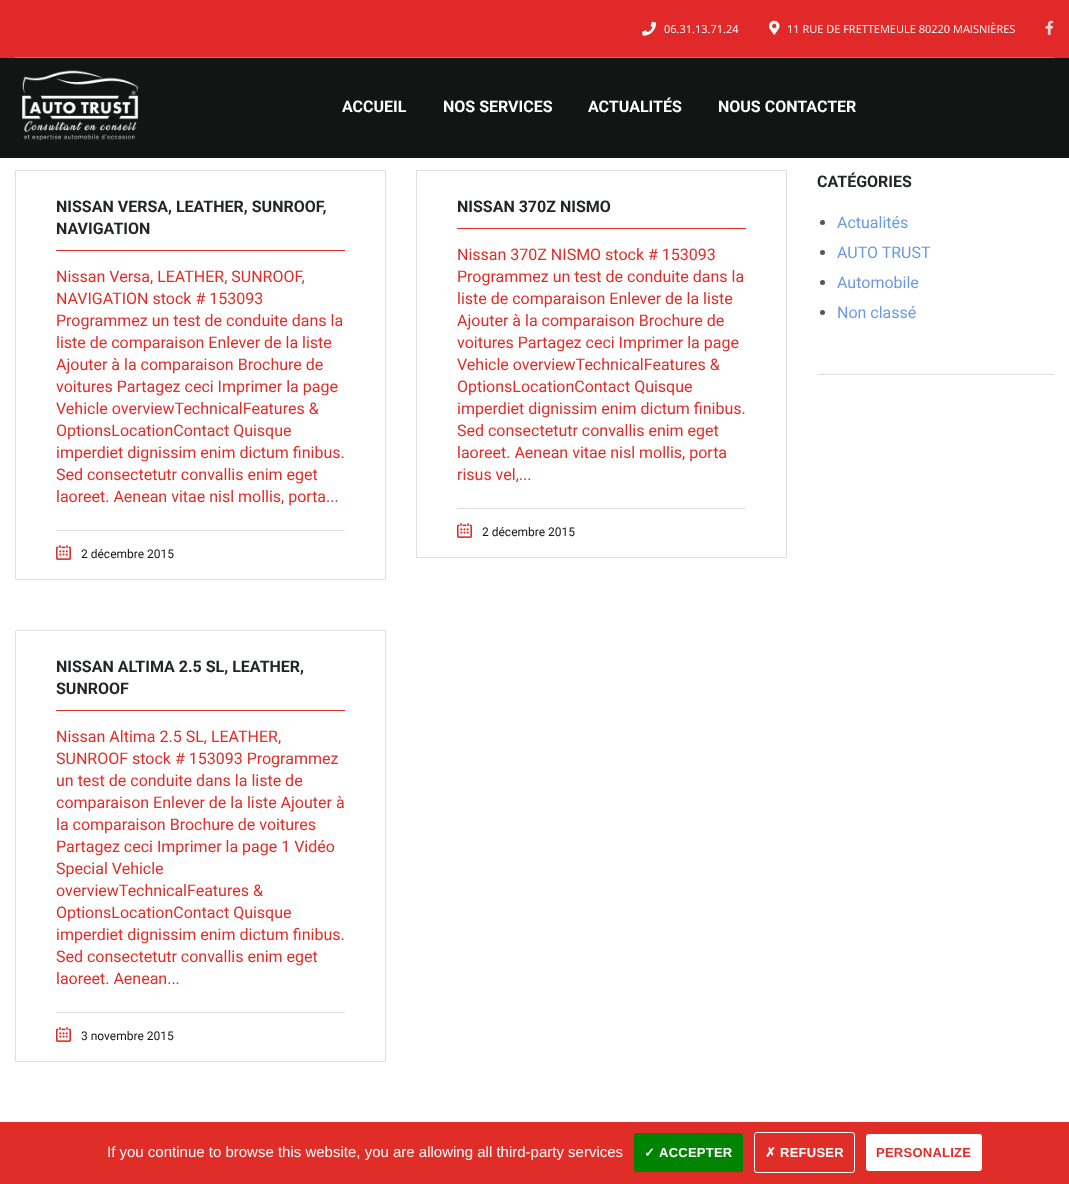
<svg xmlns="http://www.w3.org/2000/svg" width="1069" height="1184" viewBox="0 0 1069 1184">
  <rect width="100%" height="100%" fill="#ffffff"/>
  <rect x="0" y="0" width="1069" height="58" fill="#e02928"/>
  <rect x="15" y="57" width="1039" height="1" fill="#e85f5e"/>
  <image x="642" y="21" width="14" height="15" href="img1.png"/>
  <text x="664" y="33" font-family="Open Sans" font-size="11" fill="#ffffff">06.31.13.71.24</text>
  <image x="769" y="20" width="11" height="15" href="img2.png"/>
  <text x="787" y="33" font-family="Open Sans" font-size="11" fill="#ffffff">11 RUE DE FRETTEMEULE 80220 MAISNIÈRES</text>
  <image x="1045" y="20" width="9" height="15" href="img3.png"/>
  <rect x="0" y="58" width="1069" height="100" fill="#131414"/>
  <image x="22" y="70" width="117" height="71" href="img4.png"/>
  <text x="342" y="112" font-family="Roboto" font-size="16" font-weight="bold" fill="#ffffff">ACCUEIL</text>
  <text x="443" y="112" font-family="Roboto" font-size="16" font-weight="bold" fill="#ffffff">NOS SERVICES</text>
  <text x="588" y="112" font-family="Roboto" font-size="16" font-weight="bold" fill="#ffffff">ACTUALITÉS</text>
  <text x="718" y="112" font-family="Roboto" font-size="16" font-weight="bold" fill="#ffffff">NOUS CONTACTER</text>
  <rect x="15.5" y="170.5" width="370" height="409" rx="0.5" fill="none" stroke="#dddddd"/>
  <rect x="56" y="250" width="289" height="1" fill="#e02d28"/>
  <text x="56" y="212" font-family="Roboto" font-size="16" font-weight="bold" fill="#232628">NISSAN VERSA, LEATHER, SUNROOF,</text>
  <text x="56" y="234" font-family="Roboto" font-size="16" font-weight="bold" fill="#232628">NAVIGATION</text>
  <text x="56" y="282" font-family="Roboto" font-size="16" fill="#e02d28">Nissan Versa, LEATHER, SUNROOF,</text>
  <text x="56" y="304" font-family="Roboto" font-size="16" fill="#e02d28">NAVIGATION stock # 153093</text>
  <text x="56" y="326" font-family="Roboto" font-size="16" fill="#e02d28">Programmez un test de conduite dans la</text>
  <text x="56" y="348" font-family="Roboto" font-size="16" fill="#e02d28">liste de comparaison Enlever de la liste</text>
  <text x="56" y="370" font-family="Roboto" font-size="16" fill="#e02d28">Ajouter à la comparaison Brochure de</text>
  <text x="56" y="392" font-family="Roboto" font-size="16" fill="#e02d28">voitures Partagez ceci Imprimer la page</text>
  <text x="56" y="414" font-family="Roboto" font-size="16" fill="#e02d28">Vehicle overviewTechnicalFeatures &amp;</text>
  <text x="56" y="436" font-family="Roboto" font-size="16" fill="#e02d28">OptionsLocationContact Quisque</text>
  <text x="56" y="458" font-family="Roboto" font-size="16" fill="#e02d28">imperdiet dignissim enim dictum finibus.</text>
  <text x="56" y="480" font-family="Roboto" font-size="16" fill="#e02d28">Sed consectetutr convallis enim eget</text>
  <text x="56" y="502" font-family="Roboto" font-size="16" fill="#e02d28">laoreet. Aenean vitae nisl mollis, porta...</text>
  <rect x="56" y="530" width="289" height="1" fill="#dddddd"/>
  <image x="56" y="545" width="15" height="15" href="img5.png"/>
  <text x="81" y="558" font-family="Roboto" font-size="12" fill="#131414">2 décembre 2015</text>
  <rect x="416.5" y="170.5" width="370" height="387" rx="0.5" fill="none" stroke="#dddddd"/>
  <rect x="457" y="228" width="289" height="1" fill="#e02d28"/>
  <text x="457" y="212" font-family="Roboto" font-size="16" font-weight="bold" fill="#232628">NISSAN 370Z NISMO</text>
  <text x="457" y="260" font-family="Roboto" font-size="16" fill="#e02d28">Nissan 370Z NISMO stock # 153093</text>
  <text x="457" y="282" font-family="Roboto" font-size="16" fill="#e02d28">Programmez un test de conduite dans la</text>
  <text x="457" y="304" font-family="Roboto" font-size="16" fill="#e02d28">liste de comparaison Enlever de la liste</text>
  <text x="457" y="326" font-family="Roboto" font-size="16" fill="#e02d28">Ajouter à la comparaison Brochure de</text>
  <text x="457" y="348" font-family="Roboto" font-size="16" fill="#e02d28">voitures Partagez ceci Imprimer la page</text>
  <text x="457" y="370" font-family="Roboto" font-size="16" fill="#e02d28">Vehicle overviewTechnicalFeatures &amp;</text>
  <text x="457" y="392" font-family="Roboto" font-size="16" fill="#e02d28">OptionsLocationContact Quisque</text>
  <text x="457" y="414" font-family="Roboto" font-size="16" fill="#e02d28">imperdiet dignissim enim dictum finibus.</text>
  <text x="457" y="436" font-family="Roboto" font-size="16" fill="#e02d28">Sed consectetutr convallis enim eget</text>
  <text x="457" y="458" font-family="Roboto" font-size="16" fill="#e02d28">laoreet. Aenean vitae nisl mollis, porta</text>
  <text x="457" y="480" font-family="Roboto" font-size="16" fill="#e02d28">risus vel,...</text>
  <rect x="457" y="508" width="289" height="1" fill="#dddddd"/>
  <image x="457" y="523" width="15" height="15" href="img5.png"/>
  <text x="482" y="536" font-family="Roboto" font-size="12" fill="#131414">2 décembre 2015</text>
  <rect x="15.5" y="630.5" width="370" height="431" rx="0.5" fill="none" stroke="#dddddd"/>
  <rect x="56" y="710" width="289" height="1" fill="#e02d28"/>
  <text x="56" y="672" font-family="Roboto" font-size="16" font-weight="bold" fill="#232628">NISSAN ALTIMA 2.5 SL, LEATHER,</text>
  <text x="56" y="694" font-family="Roboto" font-size="16" font-weight="bold" fill="#232628">SUNROOF</text>
  <text x="56" y="742" font-family="Roboto" font-size="16" fill="#e02d28">Nissan Altima 2.5 SL, LEATHER,</text>
  <text x="56" y="764" font-family="Roboto" font-size="16" fill="#e02d28">SUNROOF stock # 153093 Programmez</text>
  <text x="56" y="786" font-family="Roboto" font-size="16" fill="#e02d28">un test de conduite dans la liste de</text>
  <text x="56" y="808" font-family="Roboto" font-size="16" fill="#e02d28">comparaison Enlever de la liste Ajouter à</text>
  <text x="56" y="830" font-family="Roboto" font-size="16" fill="#e02d28">la comparaison Brochure de voitures</text>
  <text x="56" y="852" font-family="Roboto" font-size="16" fill="#e02d28">Partagez ceci Imprimer la page 1 Vidéo</text>
  <text x="56" y="874" font-family="Roboto" font-size="16" fill="#e02d28">Special Vehicle</text>
  <text x="56" y="896" font-family="Roboto" font-size="16" fill="#e02d28">overviewTechnicalFeatures &amp;</text>
  <text x="56" y="918" font-family="Roboto" font-size="16" fill="#e02d28">OptionsLocationContact Quisque</text>
  <text x="56" y="940" font-family="Roboto" font-size="16" fill="#e02d28">imperdiet dignissim enim dictum finibus.</text>
  <text x="56" y="962" font-family="Roboto" font-size="16" fill="#e02d28">Sed consectetutr convallis enim eget</text>
  <text x="56" y="984" font-family="Roboto" font-size="16" fill="#e02d28">laoreet. Aenean...</text>
  <rect x="56" y="1012" width="289" height="1" fill="#dddddd"/>
  <image x="56" y="1027" width="15" height="15" href="img5.png"/>
  <text x="81" y="1040" font-family="Roboto" font-size="12" fill="#131414">3 novembre 2015</text>
  <rect x="817" y="374" width="237" height="1" fill="#dddddd"/>
  <text x="817" y="187" font-family="Roboto" font-size="16" font-weight="bold" fill="#232628">CATÉGORIES</text>
  <circle cx="822.5" cy="222.5" r="2.5" fill="#555555"/>
  <text x="837" y="228" font-family="Roboto" font-size="16" fill="#6c98e1">Actualités</text>
  <circle cx="822.5" cy="252.5" r="2.5" fill="#555555"/>
  <text x="837" y="258" font-family="Roboto" font-size="16" fill="#6c98e1">AUTO TRUST</text>
  <circle cx="822.5" cy="282.5" r="2.5" fill="#555555"/>
  <text x="837" y="288" font-family="Roboto" font-size="16" fill="#6c98e1">Automobile</text>
  <circle cx="822.5" cy="312.5" r="2.5" fill="#555555"/>
  <text x="837" y="318" font-family="Roboto" font-size="16" fill="#6c98e1">Non classé</text>
  <rect x="0" y="1122" width="1069" height="62" fill="#e02d28"/>
  <text x="107" y="1157" font-family="Liberation Sans" font-size="15" fill="#ffffff">If you continue to browse this website, you are allowing all third-party services</text>
  <rect x="634" y="1133" width="109" height="39" rx="3" fill="#008300"/>
  <text x="644" y="1157" font-family="DejaVu Sans" font-size="13" font-weight="bold" letter-spacing="0.25" fill="#ffffff">✓</text>
  <text x="659" y="1157" font-family="Liberation Sans" font-size="13" font-weight="bold" letter-spacing="0.25" fill="#ffffff">ACCEPTER</text>
  <rect x="754.5" y="1132.5" width="100" height="40" rx="2.5" fill="none" stroke="#ffffff"/>
  <text x="765" y="1157" font-family="DejaVu Sans" font-size="13" font-weight="bold" letter-spacing="0.25" fill="#ffffff">✗</text>
  <text x="780" y="1157" font-family="Liberation Sans" font-size="13" font-weight="bold" letter-spacing="0.25" fill="#ffffff">REFUSER</text>
  <rect x="866" y="1134" width="116" height="37" rx="3" fill="#ffffff"/>
  <text x="876" y="1157" font-family="Liberation Sans" font-size="13" font-weight="bold" letter-spacing="0.25" fill="#e02d28">PERSONALIZE</text>
</svg>
